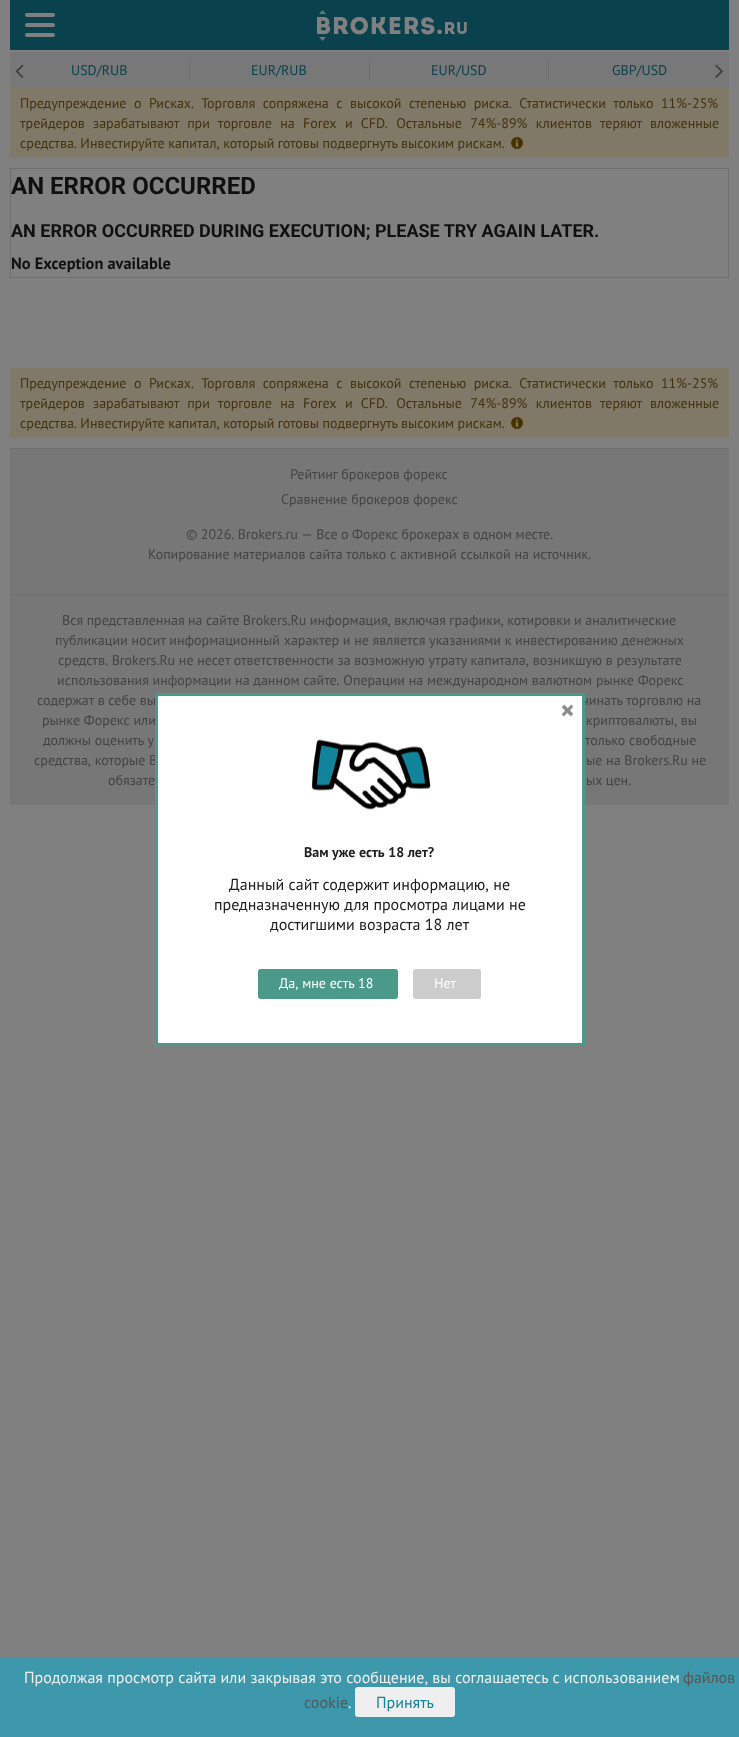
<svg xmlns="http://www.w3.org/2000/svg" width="739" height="1737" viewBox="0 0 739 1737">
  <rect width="100%" height="100%" fill="#808080"/>
  <rect x="10" y="0" width="719" height="50" fill="#09424d"/>
  <rect x="25" y="13" width="30" height="4" rx="2" fill="#808080"/>
  <rect x="25" y="23" width="30" height="4" rx="2" fill="#808080"/>
  <rect x="25" y="33" width="30" height="4" rx="2" fill="#808080"/>
  <image x="317" y="10" width="150" height="31" href="img1.png"/>
  <rect x="10" y="52" width="719" height="36" fill="#787878"/>
  <image x="15" y="64" width="9" height="14" href="img2.png"/>
  <rect x="189" y="60" width="1" height="20" fill="#6f6f6f"/>
  <text x="71" y="75" font-family="PT Sans" font-size="14" fill="#09424d">USD/RUB</text>
  <rect x="369" y="60" width="1" height="20" fill="#6f6f6f"/>
  <text x="251" y="75" font-family="PT Sans" font-size="14" fill="#09424d">EUR/RUB</text>
  <rect x="548" y="60" width="1" height="20" fill="#6f6f6f"/>
  <text x="431" y="75" font-family="PT Sans" font-size="14" fill="#09424d">EUR/USD</text>
  <text x="612" y="75" font-family="PT Sans" font-size="14" fill="#09424d">GBP/USD</text>
  <image x="715" y="64" width="8" height="14" href="img3.png"/>
  <rect x="10" y="88" width="719" height="70" fill="#807968"/>
  <text x="20" y="108" word-spacing="3.75" font-family="PT Sans" font-size="14" fill="#42320e">Предупреждение о Рисках. Торговля сопряжена с высокой степенью риска. Статистически только 11%-25%</text>
  <text x="20" y="128" word-spacing="4.6" font-family="PT Sans" font-size="14" fill="#42320e">трейдеров зарабатывают при торговле на Forex и CFD. Остальные 74%-89% клиентов теряют вложенные</text>
  <text x="20" y="148" word-spacing="-0.25" font-family="PT Sans" font-size="14" fill="#42320e">средства. Инвестируйте капитал, который готовы подвергнуть высоким рискам.</text>
  <image x="511" y="137" width="12" height="12" href="img4.png"/>
  <rect x="10.5" y="168.5" width="718" height="109" fill="none" stroke="#6f6f6f"/>
  <text x="11" y="194" font-family="Roboto" font-size="24" font-weight="bold" fill="#101010">AN ERROR OCCURRED</text>
  <text x="11" y="237" font-family="Roboto" font-size="18" font-weight="bold" fill="#101010">AN ERROR OCCURRED DURING EXECUTION; PLEASE TRY AGAIN LATER.</text>
  <text x="11" y="269" font-family="PT Sans" font-size="16.4" font-weight="bold" fill="#101010">No Exception available</text>
  <rect x="10" y="368" width="719" height="70" fill="#807968"/>
  <text x="20" y="388" word-spacing="3.75" font-family="PT Sans" font-size="14" fill="#42320e">Предупреждение о Рисках. Торговля сопряжена с высокой степенью риска. Статистически только 11%-25%</text>
  <text x="20" y="408" word-spacing="4.6" font-family="PT Sans" font-size="14" fill="#42320e">трейдеров зарабатывают при торговле на Forex и CFD. Остальные 74%-89% клиентов теряют вложенные</text>
  <text x="20" y="428" word-spacing="-0.25" font-family="PT Sans" font-size="14" fill="#42320e">средства. Инвестируйте капитал, который готовы подвергнуть высоким рискам.</text>
  <image x="511" y="417" width="12" height="12" href="img4.png"/>
  <rect x="10" y="449" width="719" height="145" fill="#777777"/>
  <rect x="10" y="448" width="719" height="1" fill="#6f6f6f"/>
  <text x="290" y="479" font-family="PT Sans" font-size="14" fill="#444444">Рейтинг брокеров форекс</text>
  <text x="281" y="504" font-family="PT Sans" font-size="14" fill="#444444">Сравнение брокеров форекс</text>
  <text x="186" y="539" word-spacing="-0.25" font-family="PT Sans" font-size="14" fill="#444444">© 2026. Brokers.ru — Все о Форекс брокерах в одном месте.</text>
  <text x="148" y="559" font-family="PT Sans" font-size="14" fill="#444444">Копирование материалов сайта только с активной ссылкой на источник.</text>
  <rect x="10" y="595" width="719" height="210" fill="#777777"/>
  <rect x="10" y="594" width="719" height="1" fill="#6f6f6f"/>
  <text x="62" y="625" word-spacing="-0.25" font-family="PT Sans" font-size="14" fill="#444444">Вся представленная на сайте Brokers.Ru информация, включая графики, котировки и аналитические</text>
  <text x="55" y="645" font-family="PT Sans" font-size="14" fill="#444444">публикации носит информационный характер и не является указаниями к инвестированию денежных</text>
  <text x="58" y="665" font-family="PT Sans" font-size="14" fill="#444444">средств. Brokers.Ru не несет ответственности за возможную утрату капитала, возникшую в результате</text>
  <text x="57" y="685" font-family="PT Sans" font-size="14" fill="#444444">использования информации на данном сайте. Операции на международном валютном рынке Форекс</text>
  <text x="37" y="705" font-family="PT Sans" font-size="14" fill="#444444">содержат в себе вы</text>
  <text x="582" y="705" font-family="PT Sans" font-size="14" fill="#444444">чинать торговлю на</text>
  <text x="42" y="725" font-family="PT Sans" font-size="14" fill="#444444">рынке Форекс или</text>
  <text x="586" y="725" font-family="PT Sans" font-size="14" fill="#444444">криптовалюты, вы</text>
  <text x="43" y="745" font-family="PT Sans" font-size="14" fill="#444444">должны оценить у</text>
  <text x="585" y="745" font-family="PT Sans" font-size="14" fill="#444444">только свободные</text>
  <text x="34" y="765" font-family="PT Sans" font-size="14" fill="#444444">средства, которые В</text>
  <text x="586" y="765" font-family="PT Sans" font-size="14" fill="#444444">ые на Brokers.Ru не</text>
  <text x="108" y="785" font-family="PT Sans" font-size="14" fill="#444444">обязате</text>
  <text x="586" y="785" font-family="PT Sans" font-size="14" fill="#444444">ых цен.</text>
  <rect x="156.5" y="694.5" width="427" height="350" fill="#ffffff" stroke="#4b9988" stroke-width="3"/>
  <image x="561" y="704" width="13" height="13" href="img5.png"/>
  <image x="311" y="739" width="120" height="71" href="img6.png"/>
  <text x="304" y="857" font-family="PT Sans" font-size="14" font-weight="bold" fill="#202020">Вам уже есть 18 лет?</text>
  <text x="229" y="890" font-family="PT Sans" font-size="16" fill="#202020">Данный сайт содержит информацию, не</text>
  <text x="214" y="910" font-family="PT Sans" font-size="16" fill="#202020">предназначенную для просмотра лицами не</text>
  <text x="270" y="930" font-family="PT Sans" font-size="16" fill="#202020">достигшими возраста 18 лет</text>
  <rect x="258" y="969" width="140" height="30" rx="3" fill="#4b9988"/>
  <text x="279" y="988" font-family="PT Sans" font-size="14" fill="#ffffff">Да, мне есть 18</text>
  <rect x="413" y="969" width="68" height="30" rx="3" fill="#cccccc"/>
  <text x="434" y="988" font-family="PT Sans" font-size="14" fill="#ffffff">Нет</text>
  <rect x="0" y="1657" width="739" height="80" fill="#3d98ab"/>
  <text x="24" y="1683" font-family="PT Sans" font-size="16" fill="#efefef">Продолжая просмотр сайта или закрывая это сообщение, вы соглашаетесь с использованием</text>
  <text x="683" y="1683" font-family="PT Sans" font-size="16" fill="#565656">файлов</text>
  <text x="304" y="1708" font-family="PT Sans" font-size="16" fill="#565656">cookie</text>
  <text x="348" y="1708" font-family="PT Sans" font-size="16" fill="#efefef">.</text>
  <rect x="355" y="1687" width="100" height="30" rx="3" fill="#efefef"/>
  <text x="376" y="1708" font-family="PT Sans" font-size="16" fill="#11839a">Принять</text>
</svg>
